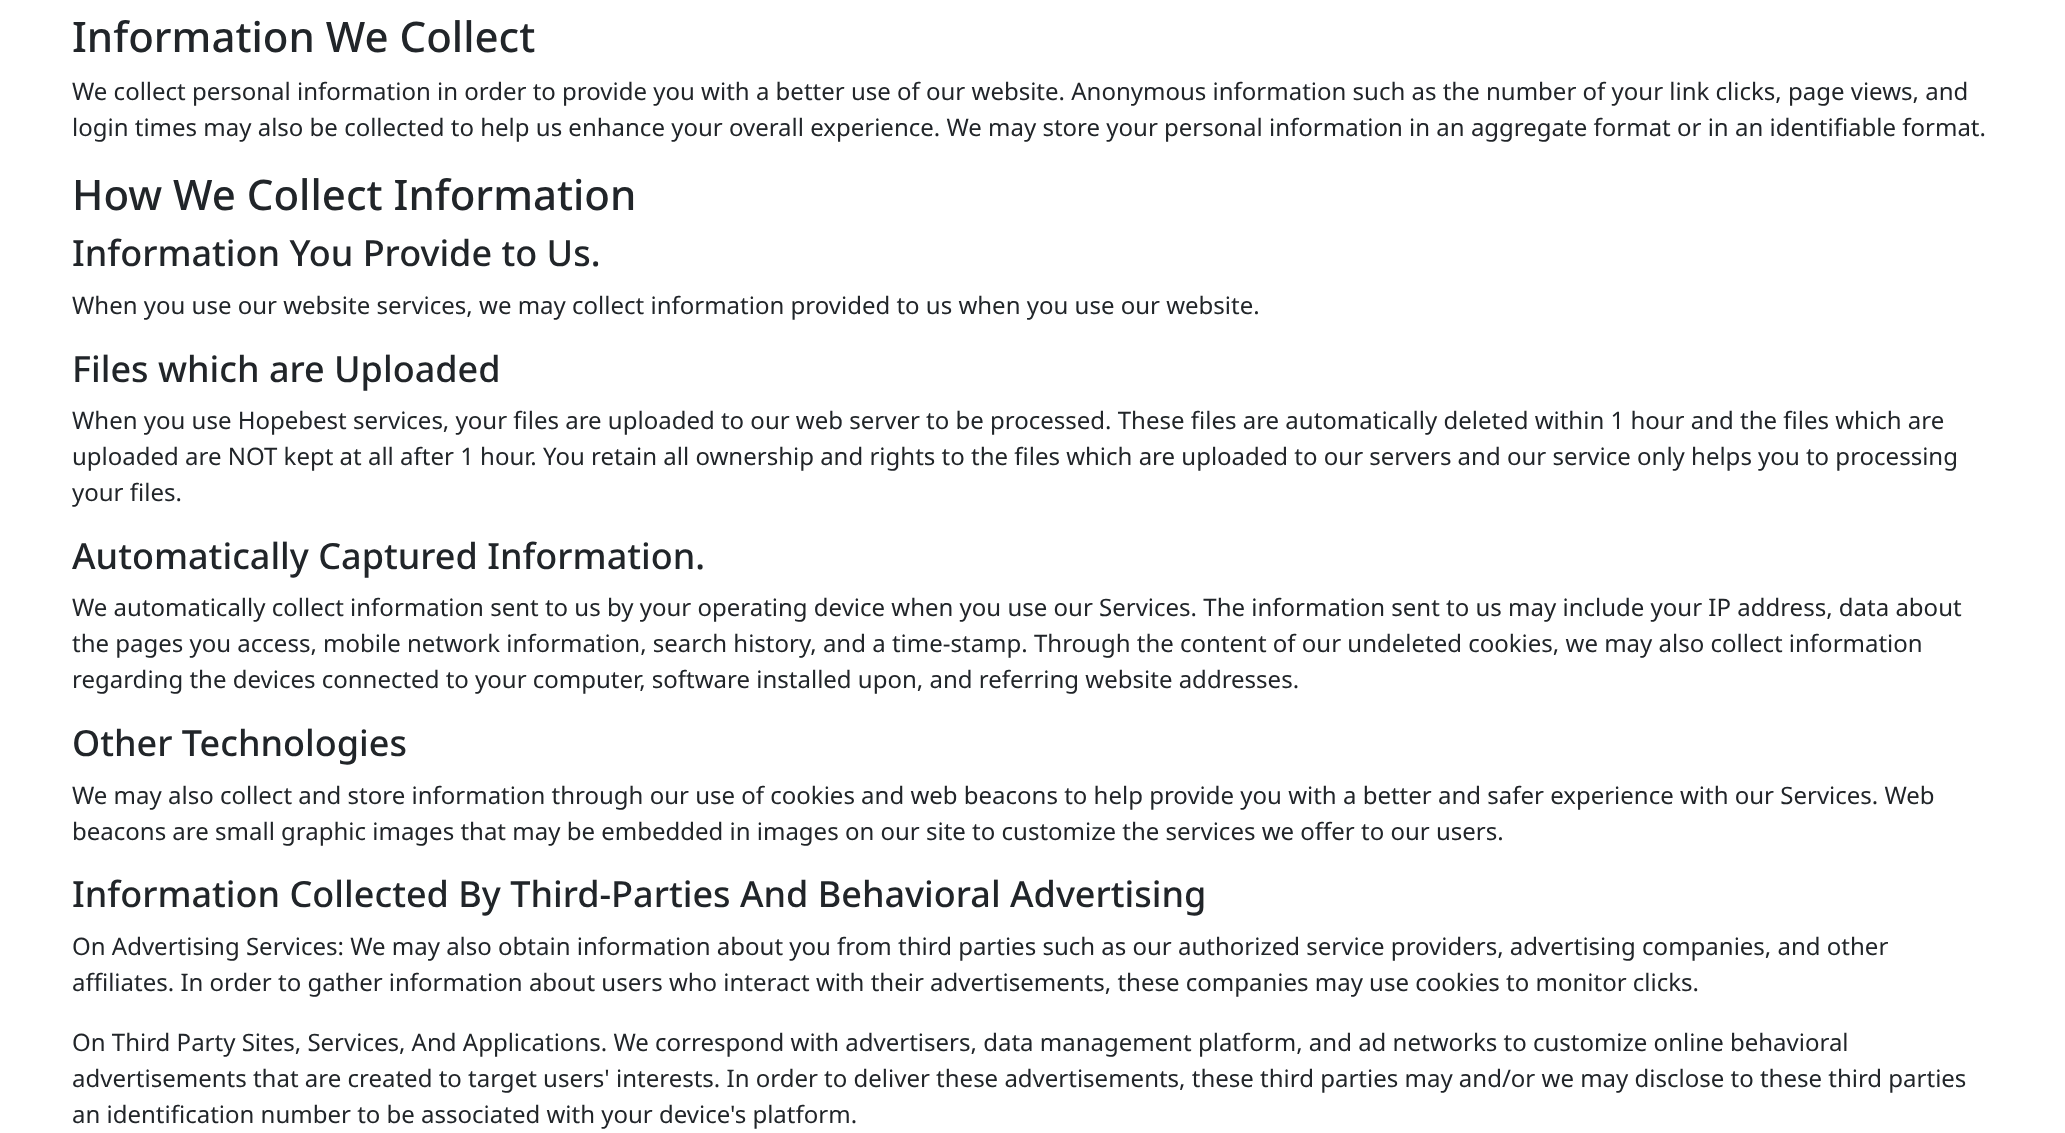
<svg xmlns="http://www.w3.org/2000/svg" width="2065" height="1133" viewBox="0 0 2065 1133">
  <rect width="100%" height="100%" fill="#ffffff"/>
  <text x="72" y="52" font-family="Noto Sans" font-size="42" font-weight="500" fill="#212529">Information We Collect</text>
  <text x="72" y="100" font-family="Noto Sans" font-size="24" fill="#212529">We collect personal information in order to provide you with a better use of our website. Anonymous information such as the number of your link clicks, page views, and</text>
  <text x="72" y="136" font-family="Noto Sans" font-size="24" fill="#212529">login times may also be collected to help us enhance your overall experience. We may store your personal information in an aggregate format or in an identifiable format.</text>
  <text x="72" y="210" font-family="Noto Sans" font-size="42" font-weight="500" fill="#212529">How We Collect Information</text>
  <text x="72" y="266" font-family="Noto Sans" font-size="36" font-weight="500" fill="#212529">Information You Provide to Us.</text>
  <text x="72" y="314" font-family="Noto Sans" font-size="24" fill="#212529">When you use our website services, we may collect information provided to us when you use our website.</text>
  <text x="72" y="382" font-family="Noto Sans" font-size="36" font-weight="500" fill="#212529">Files which are Uploaded</text>
  <text x="72" y="429" font-family="Noto Sans" font-size="24" fill="#212529">When you use Hopebest services, your files are uploaded to our web server to be processed. These files are automatically deleted within 1 hour and the files which are</text>
  <text x="72" y="465" font-family="Noto Sans" font-size="24" fill="#212529">uploaded are NOT kept at all after 1 hour. You retain all ownership and rights to the files which are uploaded to our servers and our service only helps you to processing</text>
  <text x="72" y="501" font-family="Noto Sans" font-size="24" fill="#212529">your files.</text>
  <text x="72" y="569" font-family="Noto Sans" font-size="36" font-weight="500" fill="#212529">Automatically Captured Information.</text>
  <text x="72" y="616" font-family="Noto Sans" font-size="24" fill="#212529">We automatically collect information sent to us by your operating device when you use our Services. The information sent to us may include your IP address, data about</text>
  <text x="72" y="652" font-family="Noto Sans" font-size="24" fill="#212529">the pages you access, mobile network information, search history, and a time-stamp. Through the content of our undeleted cookies, we may also collect information</text>
  <text x="72" y="688" font-family="Noto Sans" font-size="24" fill="#212529">regarding the devices connected to your computer, software installed upon, and referring website addresses.</text>
  <text x="72" y="756" font-family="Noto Sans" font-size="36" font-weight="500" fill="#212529">Other Technologies</text>
  <text x="72" y="804" font-family="Noto Sans" font-size="24" fill="#212529">We may also collect and store information through our use of cookies and web beacons to help provide you with a better and safer experience with our Services. Web</text>
  <text x="72" y="840" font-family="Noto Sans" font-size="24" fill="#212529">beacons are small graphic images that may be embedded in images on our site to customize the services we offer to our users.</text>
  <text x="72" y="907" font-family="Noto Sans" font-size="36" font-weight="500" fill="#212529">Information Collected By Third-Parties And Behavioral Advertising</text>
  <text x="72" y="955" font-family="Noto Sans" font-size="24" fill="#212529">On Advertising Services: We may also obtain information about you from third parties such as our authorized service providers, advertising companies, and other</text>
  <text x="72" y="991" font-family="Noto Sans" font-size="24" fill="#212529">affiliates. In order to gather information about users who interact with their advertisements, these companies may use cookies to monitor clicks.</text>
  <text x="72" y="1051" font-family="Noto Sans" font-size="24" fill="#212529">On Third Party Sites, Services, And Applications. We correspond with advertisers, data management platform, and ad networks to customize online behavioral</text>
  <text x="72" y="1087" font-family="Noto Sans" font-size="24" fill="#212529">advertisements that are created to target users' interests. In order to deliver these advertisements, these third parties may and/or we may disclose to these third parties</text>
  <text x="72" y="1123" font-family="Noto Sans" font-size="24" fill="#212529">an identification number to be associated with your device's platform.</text>
</svg>
